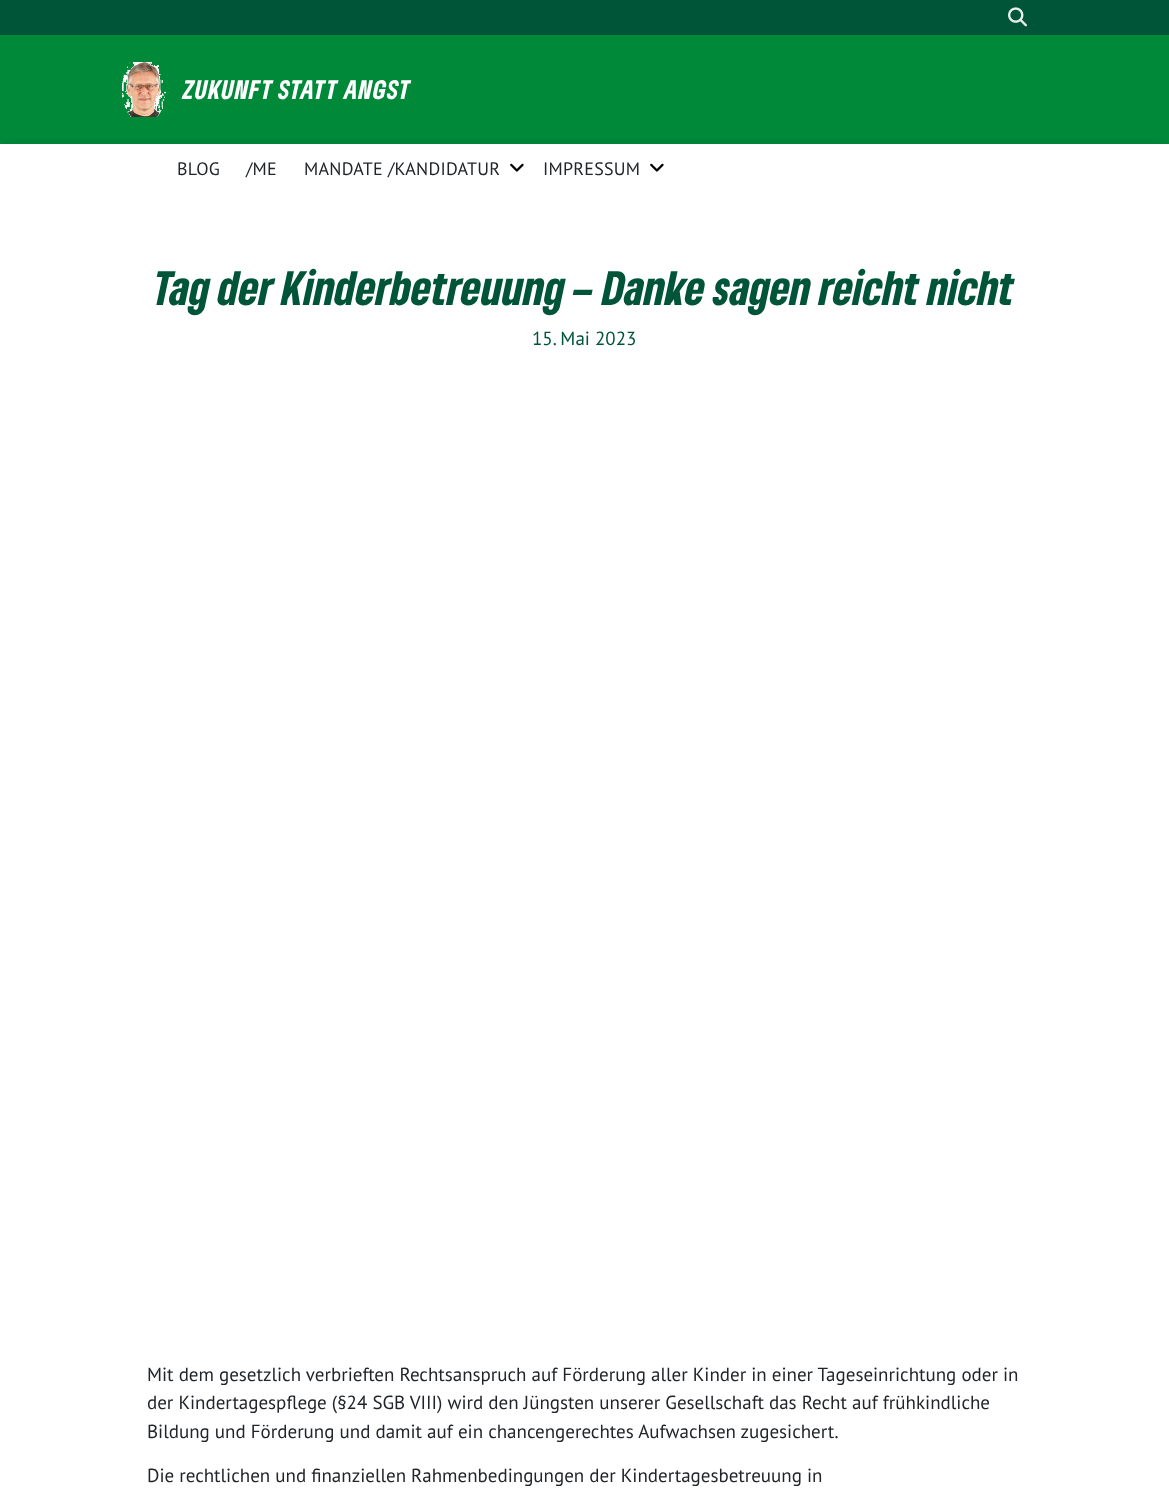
<svg xmlns="http://www.w3.org/2000/svg" width="1169" height="1488" viewBox="0 0 1169 1488">
  <defs>
    <clipPath id="clip1"><rect x="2" y="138" width="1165" height="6"/></clipPath>
    <filter id="blur1" x="-50%" y="-200%" width="200%" height="500%"><feGaussianBlur stdDeviation="10"/></filter>
  </defs>
  <rect width="100%" height="100%" fill="#ffffff"/>
  <rect x="0" y="0" width="1169" height="35" fill="#005437"/>
  <image x="1008" y="7" width="19" height="20" href="img1.png"/>
  <rect x="0" y="35" width="1169" height="109" fill="#008939"/>
  <image x="122" y="62" width="44" height="55" href="img2.png"/>
  <text x="183" y="99" font-family="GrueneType" font-size="25" font-weight="900" letter-spacing="1" fill="#ffffff">ZUKUNFT STATT ANGST</text>
  <g clip-path="url(#clip1)">
    <rect x="0" y="145" width="1169" height="49" fill="#000000" fill-opacity="0.08" filter="url(#blur1)"/>
  </g>
  <text x="177" y="175" font-family="PT Sans" font-size="18" letter-spacing="0.25" fill="#212529">BLOG</text>
  <text x="246" y="175" font-family="PT Sans" font-size="18" letter-spacing="0.25" fill="#212529">/ME</text>
  <text x="304" y="175" font-family="PT Sans" font-size="18" letter-spacing="0.25" fill="#212529">MANDATE /KANDIDATUR</text>
  <image x="510" y="163" width="14" height="9" href="img3.png"/>
  <text x="543" y="175" font-family="PT Sans" font-size="18" letter-spacing="0.25" fill="#212529">IMPRESSUM</text>
  <image x="650" y="163" width="14" height="9" href="img3.png"/>
  <rect x="0" y="193" width="1169" height="12" fill="#ffffff"/>
  <text x="154" y="305" font-family="GrueneType" font-size="45" font-weight="900" fill="#005437">Tag der Kinderbetreuung – Danke sagen reicht nicht</text>
  <text x="532" y="345" font-family="PT Sans" font-size="19" fill="#005437">15. Mai 2023</text>
  <text x="147" y="1381" font-family="PT Sans" font-size="19" fill="#212529">Mit dem gesetzlich verbrieften Rechtsanspruch auf Förderung aller Kinder in einer Tageseinrichtung oder in</text>
  <text x="147" y="1409" font-family="PT Sans" font-size="19" fill="#212529">der Kindertagespflege (§24 SGB VIII) wird den Jüngsten unserer Gesellschaft das Recht auf frühkindliche</text>
  <text x="147" y="1438" font-family="PT Sans" font-size="19" fill="#212529">Bildung und Förderung und damit auf ein chancengerechtes Aufwachsen zugesichert.</text>
  <text x="147" y="1482" font-family="PT Sans" font-size="19" fill="#212529">Die rechtlichen und finanziellen Rahmenbedingungen der Kindertagesbetreuung in</text>
</svg>
